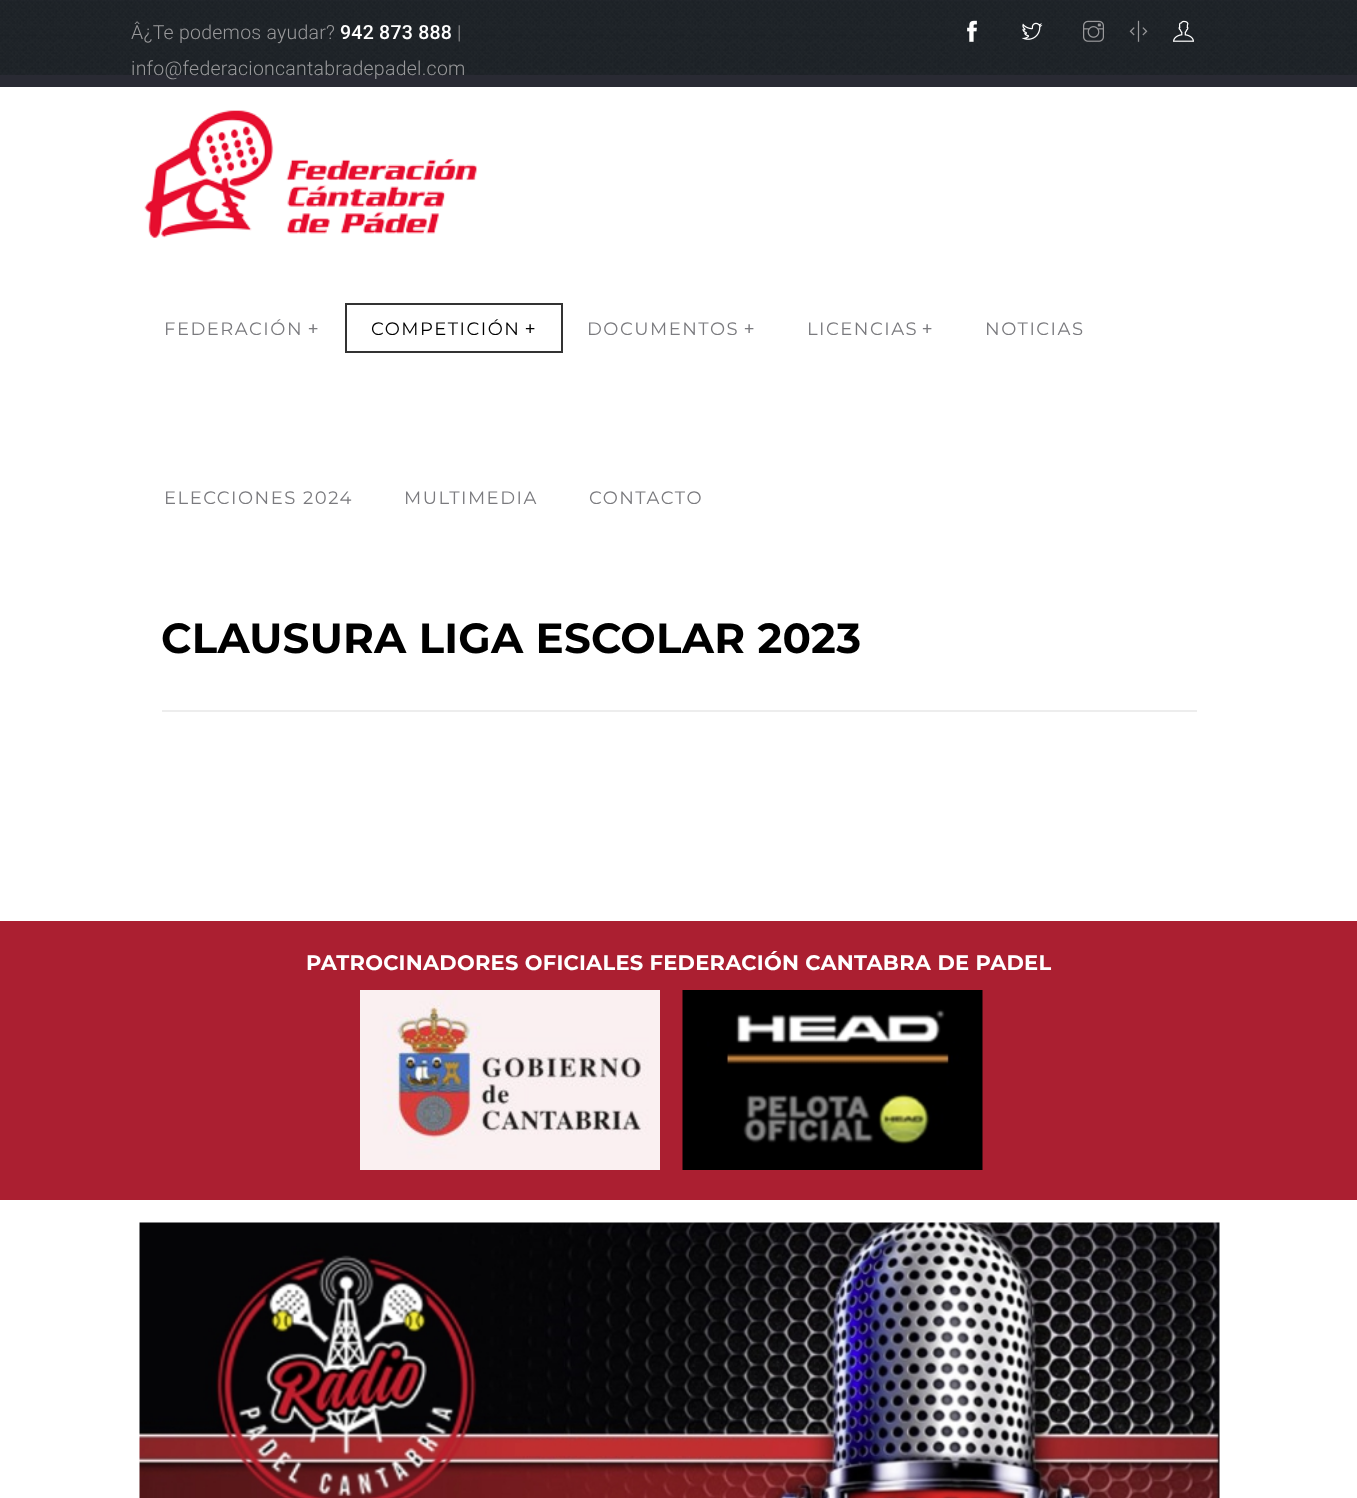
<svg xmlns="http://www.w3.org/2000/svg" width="1357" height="1498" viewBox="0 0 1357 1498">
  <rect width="100%" height="100%" fill="#ffffff"/>
  <rect x="0" y="0" width="1357" height="87" fill="#292a33"/>
  <image x="0" y="0" width="1357" height="75" href="img1.png"/>
  <text x="131" y="39" font-family="Roboto" font-size="19.5" font-weight="300" letter-spacing="0.25" fill="#99999b">Â¿Te podemos ayudar?</text>
  <text x="340" y="39" font-family="Roboto" font-size="19.5" font-weight="500" letter-spacing="0.25" fill="#ffffff">942 873 888</text>
  <text x="457" y="39" font-family="Roboto" font-size="19.5" font-weight="300" letter-spacing="0.25" fill="#99999b">|</text>
  <text x="131" y="75" font-family="Roboto" font-size="19.5" font-weight="300" letter-spacing="0.25" fill="#99999b">info@federacioncantabradepadel.com</text>
  <image x="967" y="20" width="10" height="22" href="img2.png"/>
  <image x="1021" y="22" width="22" height="18" href="img3.png"/>
  <image x="1083" y="20" width="21" height="22" href="img4.png"/>
  <image x="1129" y="20" width="19" height="22" href="img5.png"/>
  <image x="1173" y="20" width="21" height="22" href="img6.png"/>
  <image x="144" y="110" width="333" height="128" href="img7.png"/>
  <text x="164" y="335" font-family="Montserrat" font-size="18" letter-spacing="1.5" fill="#7a7a7e">FEDERACIÓN</text>
  <text x="308" y="335" font-family="Open Sans" font-size="18" font-weight="500" letter-spacing="1.5" fill="#7a7a7e">+</text>
  <rect x="346" y="304" width="216" height="48" fill="none" stroke="#333333" stroke-width="2"/>
  <text x="371" y="335" font-family="Montserrat" font-size="18" letter-spacing="1.5" fill="#000000">COMPETICIÓN</text>
  <text x="525" y="335" font-family="Open Sans" font-size="18" font-weight="500" letter-spacing="1.5" fill="#000000">+</text>
  <text x="587" y="335" font-family="Montserrat" font-size="18" letter-spacing="1.5" fill="#7a7a7e">DOCUMENTOS</text>
  <text x="744" y="335" font-family="Open Sans" font-size="18" font-weight="500" letter-spacing="1.5" fill="#7a7a7e">+</text>
  <text x="807" y="335" font-family="Montserrat" font-size="18" letter-spacing="1.5" fill="#7a7a7e">LICENCIAS</text>
  <text x="922" y="335" font-family="Open Sans" font-size="18" font-weight="500" letter-spacing="1.5" fill="#7a7a7e">+</text>
  <text x="985" y="335" font-family="Montserrat" font-size="18" letter-spacing="1.5" fill="#7a7a7e">NOTICIAS</text>
  <text x="164" y="504" font-family="Montserrat" font-size="18" letter-spacing="1.5" fill="#7a7a7e">ELECCIONES 2024</text>
  <text x="404" y="504" font-family="Montserrat" font-size="18" letter-spacing="1.5" fill="#7a7a7e">MULTIMEDIA</text>
  <text x="589" y="504" font-family="Montserrat" font-size="18" letter-spacing="1.5" fill="#7a7a7e">CONTACTO</text>
  <text x="161" y="653" font-family="Montserrat" font-size="42" font-weight="bold" letter-spacing="0.25" fill="#000000">CLAUSURA LIGA ESCOLAR 2023</text>
  <rect x="162" y="710" width="1035" height="2" fill="#ededed"/>
  <rect x="0" y="921" width="1357" height="279" fill="#ab1f31"/>
  <text x="306" y="970" font-family="Montserrat" font-size="21" font-weight="bold" letter-spacing="0.25" fill="#ffffff">PATROCINADORES OFICIALES FEDERACIÓN CANTABRA DE PADEL</text>
  <image x="360" y="990" width="300" height="180" href="img8.png"/>
  <image x="682" y="990" width="301" height="180" href="img9.png"/>
  <image x="139" y="1222" width="1081" height="276" href="img10.png"/>
</svg>
